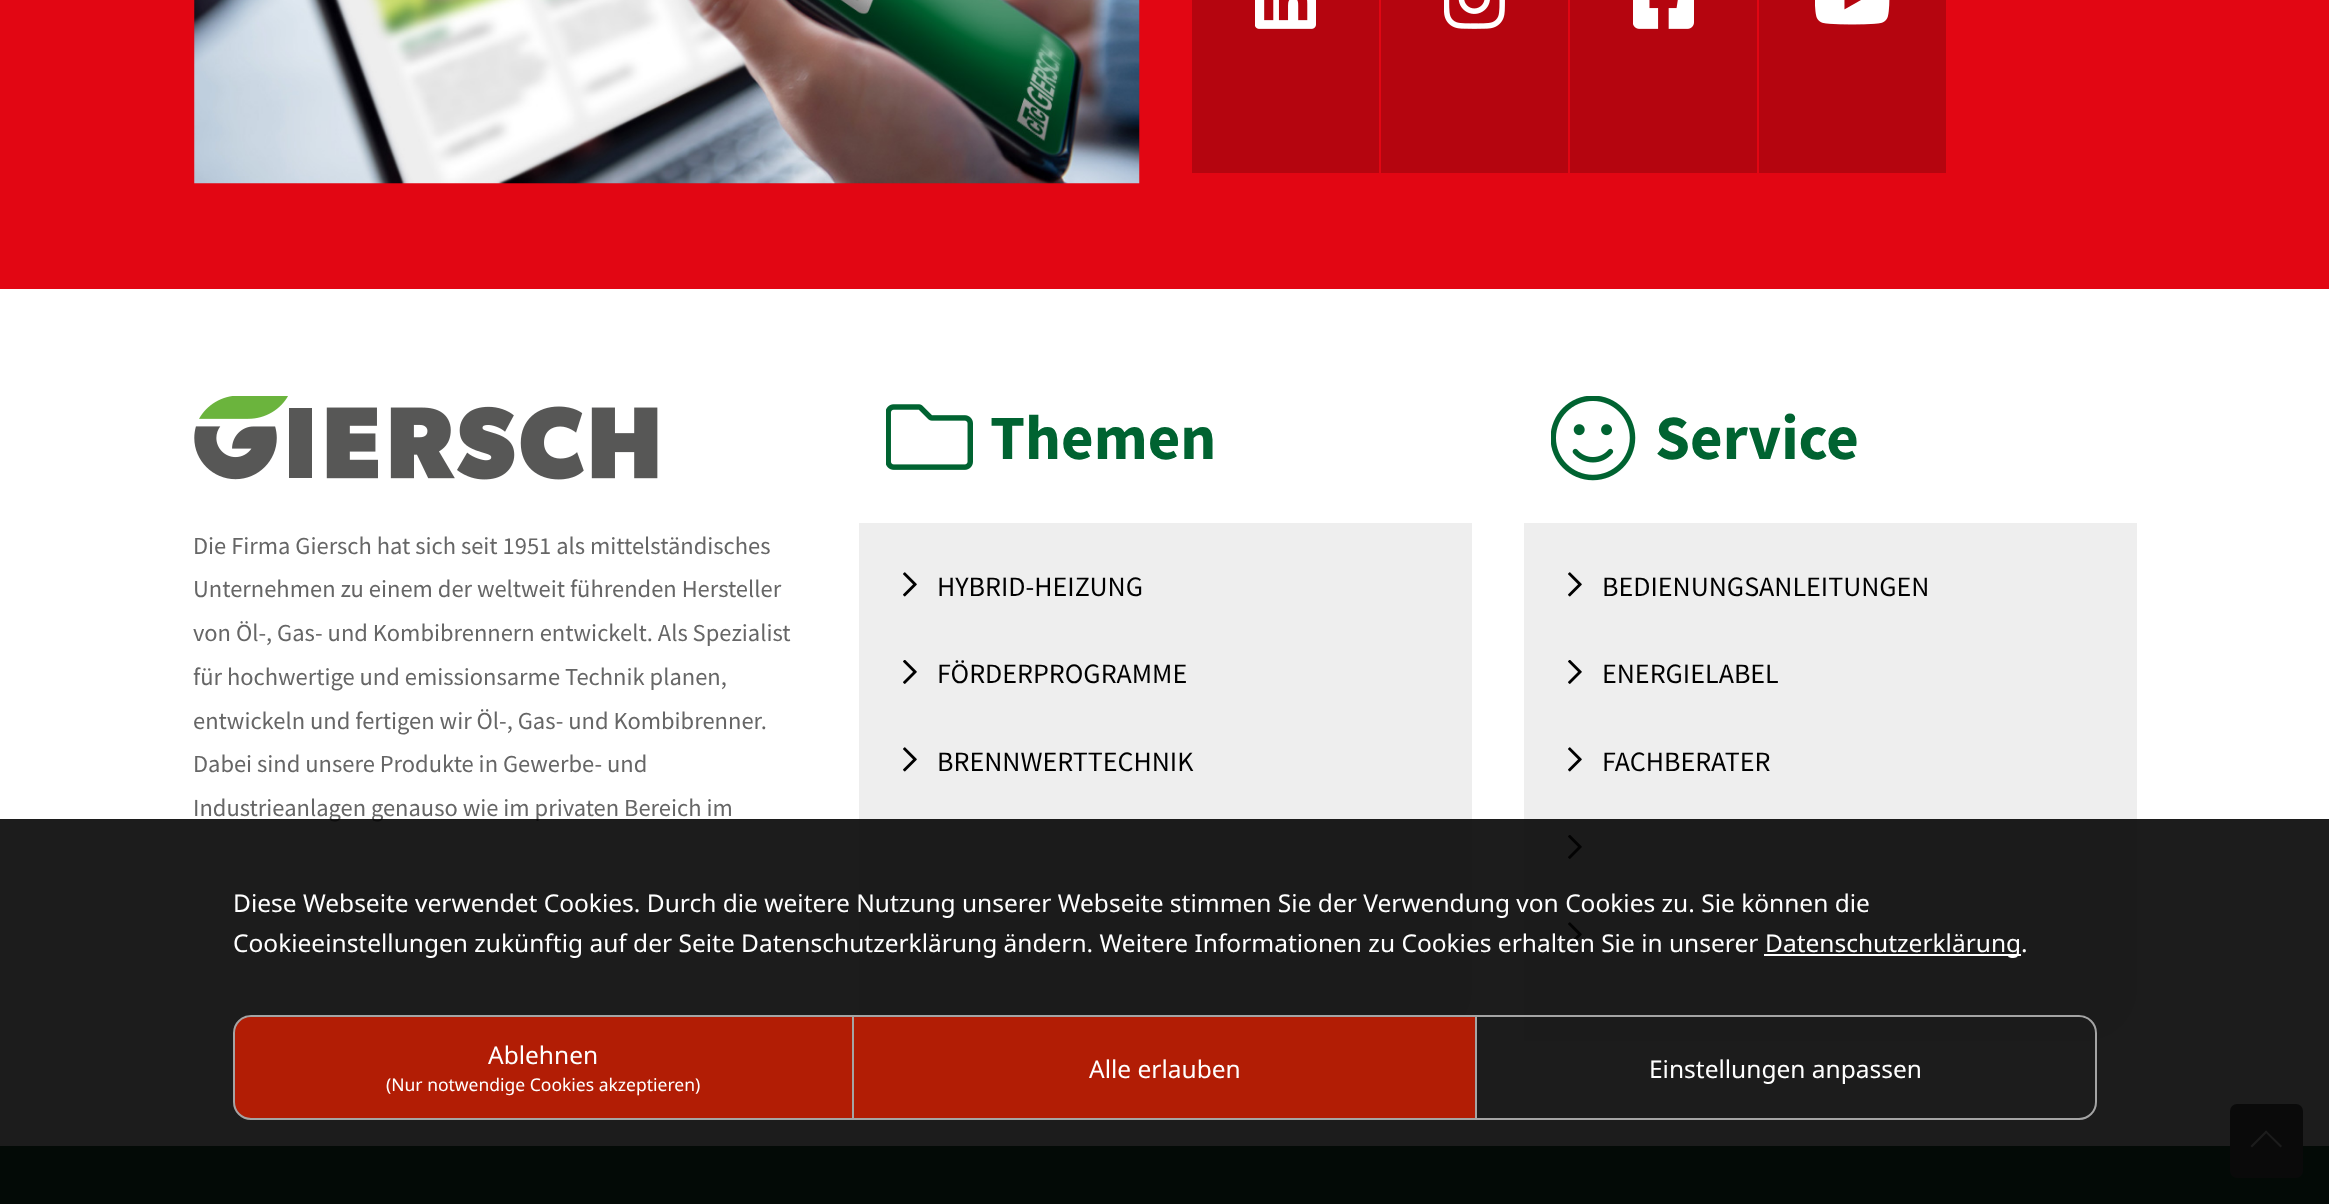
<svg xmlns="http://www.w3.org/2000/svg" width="2329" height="1204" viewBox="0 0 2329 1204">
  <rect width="100%" height="100%" fill="#ffffff"/>
  <rect x="0" y="0" width="2329" height="289" fill="#e20613"/>
  <image x="194" y="0" width="946" height="184" href="img1.png"/>
  <rect x="1192" y="0" width="187" height="173" fill="#b5050f"/>
  <image x="1255" y="0" width="61" height="29" href="img2.png"/>
  <rect x="1381" y="0" width="187" height="173" fill="#b5050f"/>
  <image x="1444" y="0" width="61" height="29" href="img3.png"/>
  <rect x="1570" y="0" width="187" height="173" fill="#b5050f"/>
  <image x="1633" y="0" width="61" height="29" href="img4.png"/>
  <rect x="1759" y="0" width="187" height="173" fill="#b5050f"/>
  <image x="1815" y="0" width="75" height="25" href="img5.png"/>
  <image x="194" y="396" width="464" height="84" href="img6.png"/>
  <text x="193" y="554" font-family="Source Sans Pro" font-size="24.5" fill="#666666">Die Firma Giersch hat sich seit 1951 als mittelständisches</text>
  <text x="193" y="597" font-family="Source Sans Pro" font-size="24.5" fill="#666666">Unternehmen zu einem der weltweit führenden Hersteller</text>
  <text x="193" y="641" font-family="Source Sans Pro" font-size="24.5" fill="#666666">von Öl-, Gas- und Kombibrennern entwickelt. Als Spezialist</text>
  <text x="193" y="685" font-family="Source Sans Pro" font-size="24.5" fill="#666666">für hochwertige und emissionsarme Technik planen,</text>
  <text x="193" y="729" font-family="Source Sans Pro" font-size="24.5" fill="#666666">entwickeln und fertigen wir Öl-, Gas- und Kombibrenner.</text>
  <text x="193" y="772" font-family="Source Sans Pro" font-size="24.5" fill="#666666">Dabei sind unsere Produkte in Gewerbe- und</text>
  <text x="193" y="816" font-family="Source Sans Pro" font-size="24.5" fill="#666666">Industrieanlagen genauso wie im privaten Bereich im</text>
  <image x="886" y="404" width="87" height="66" href="img7.png"/>
  <text x="990" y="459" font-family="Source Sans Pro" font-size="63" font-weight="bold" fill="#006331">Themen</text>
  <path d="M859 523H1472V988C1472 1017.5 1448.5 1041 1419 1041H859Z" fill="#eeeeee"/>
  <image x="903" y="572" width="14" height="25" href="img8.png"/>
  <text x="937" y="596" font-family="Source Sans Pro" font-size="28" fill="#000000">HYBRID-HEIZUNG</text>
  <image x="903" y="660" width="14" height="24" href="img9.png"/>
  <text x="937" y="683" font-family="Source Sans Pro" font-size="28" fill="#000000">FÖRDERPROGRAMME</text>
  <image x="903" y="747" width="14" height="25" href="img8.png"/>
  <text x="937" y="771" font-family="Source Sans Pro" font-size="28" fill="#000000">BRENNWERTTECHNIK</text>
  <image x="1551" y="396" width="85" height="85" href="img10.png"/>
  <text x="1655" y="459" font-family="Source Sans Pro" font-size="63" font-weight="bold" fill="#006331">Service</text>
  <path d="M1524 523H2137V988C2137 1017.5 2113.5 1041 2084 1041H1524Z" fill="#eeeeee"/>
  <image x="1568" y="572" width="14" height="25" href="img8.png"/>
  <text x="1602" y="596" font-family="Source Sans Pro" font-size="28" fill="#000000">BEDIENUNGSANLEITUNGEN</text>
  <image x="1568" y="660" width="14" height="24" href="img9.png"/>
  <text x="1602" y="683" font-family="Source Sans Pro" font-size="28" fill="#000000">ENERGIELABEL</text>
  <image x="1568" y="747" width="14" height="25" href="img8.png"/>
  <text x="1602" y="771" font-family="Source Sans Pro" font-size="28" fill="#000000">FACHBERATER</text>
  <image x="1568" y="835" width="14" height="24" href="img9.png"/>
  <image x="1568" y="922" width="14" height="25" href="img8.png"/>
  <rect x="0" y="1146" width="2329" height="58" fill="#004a25"/>
  <rect x="2230" y="1104" width="73" height="74" rx="7" fill="#494949"/>
  <path d="M2266 1130.5L2282 1146L2280.5 1147.5L2265 1132Z" fill="#ffffff"/>
  <path d="M2266 1130.5L2267.5 1132L2252 1147.5L2250.5 1146Z" fill="#ffffff"/>
  <rect x="0" y="819" width="2329" height="385" fill="#030303" fill-opacity="0.9"/>
  <text x="233" y="912" font-family="Noto Sans" font-size="24.5" fill="#ffffff">Diese Webseite verwendet Cookies. Durch die weitere Nutzung unserer Webseite stimmen Sie der Verwendung von Cookies zu. Sie können die</text>
  <text x="233" y="952" font-family="Noto Sans" font-size="24.5" fill="#ffffff">Cookieeinstellungen zukünftig auf der Seite Datenschutzerklärung ändern. Weitere Informationen zu Cookies erhalten Sie in unserer</text>
  <rect x="1764" y="954" width="257" height="2" fill="#ffffff"/>
  <text x="1765" y="952" font-family="Noto Sans" font-size="24.5" fill="#ffffff">Datenschutzerklärung.</text>
  <path d="M251 1016H853V1119H251C241.5 1119 234 1111.5 234 1102V1033C234 1023.5 241.5 1016 251 1016Z" fill="#b21d05" stroke="#a4a4a4" stroke-width="2"/>
  <text x="488" y="1064" font-family="Noto Sans" font-size="24.5" fill="#ffffff">Ablehnen</text>
  <text x="386" y="1091" font-family="Noto Sans" font-size="17.5" fill="#ffffff">(Nur notwendige Cookies akzeptieren)</text>
  <rect x="854" y="1017" width="621" height="101" fill="#b21d05"/>
  <rect x="854" y="1015" width="621" height="2" fill="#a4a4a4"/>
  <rect x="854" y="1118" width="621" height="2" fill="#a4a4a4"/>
  <text x="1089" y="1078" font-family="Noto Sans" font-size="24.5" fill="#ffffff">Alle erlauben</text>
  <path d="M1476 1016H2079C2088.5 1016 2096 1023.5 2096 1033V1102C2096 1111.5 2088.5 1119 2079 1119H1476Z" fill="none" stroke="#a4a4a4" stroke-width="2"/>
  <text x="1649" y="1078" font-family="Noto Sans" font-size="24.5" fill="#ffffff">Einstellungen anpassen</text>
</svg>
